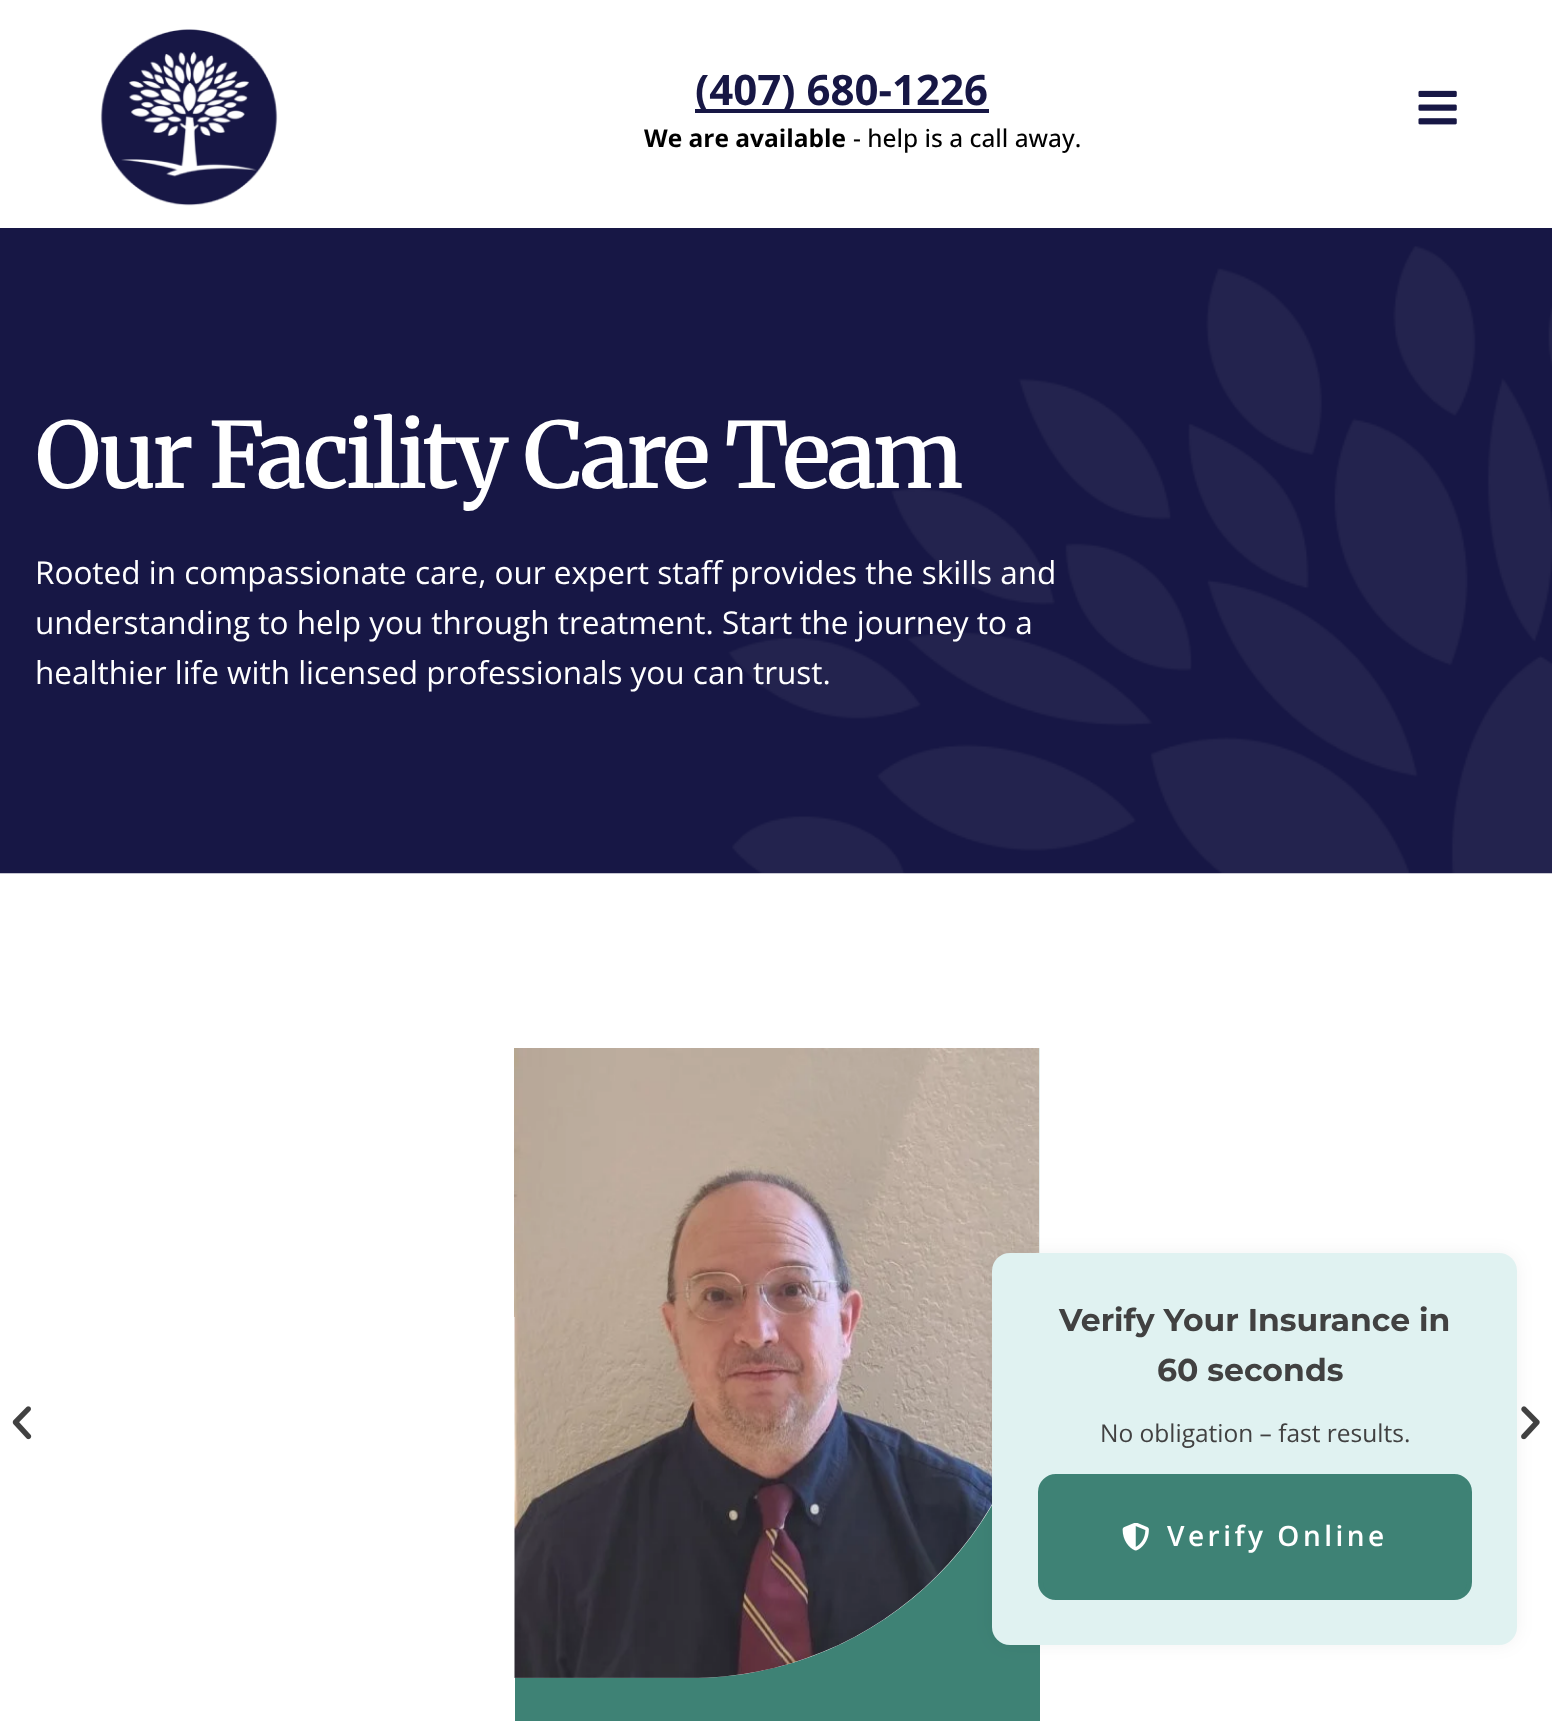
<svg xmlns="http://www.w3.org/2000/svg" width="1552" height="1721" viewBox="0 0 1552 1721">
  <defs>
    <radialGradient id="g1" gradientUnits="userSpaceOnUse" cx="0" cy="0" r="1" gradientTransform="matrix(371 0 0 445 777 1363)"><stop offset="0" stop-color="#ffffff"/><stop offset="1" stop-color="#ffffff" stop-opacity="0"/></radialGradient>
    <filter id="blur1" x="-50%" y="-200%" width="200%" height="500%"><feGaussianBlur stdDeviation="9"/></filter>
  </defs>
  <rect width="100%" height="100%" fill="#ffffff"/>
  <image x="100" y="29" width="178" height="177" href="img1.png"/>
  <rect x="695" y="109" width="294" height="4" fill="#171745"/>
  <text x="695" y="105" font-family="Open Sans" font-size="42" font-weight="bold" fill="#171745">(407) 680-1226</text>
  <text x="644" y="147" font-family="Open Sans" font-size="24.5" font-weight="bold" fill="#000000">We are available</text>
  <text x="853" y="147" font-family="Open Sans" font-size="24.5" font-weight="500" fill="#000000">- help is a call away.</text>
  <image x="1418" y="90" width="39" height="35" href="img2.png"/>
  <rect x="515" y="1505" width="525" height="216" fill="#3e8275"/>
  <path d="M515 1048H1040V1328C1040 1521.5 883.5 1678 690 1678H515Z" fill="#e2eceb"/>
  <path d="M515 1048H1040V1328C1040 1521.5 883.5 1678 690 1678H515Z" fill="url(#g1)"/>
  <image x="514" y="1048" width="525" height="630" href="img6.png"/>
  <image x="1521" y="1406" width="19" height="34" href="img7.png"/>
  <rect x="992" y="1253" width="525" height="392" rx="18" fill="#000000" fill-opacity="0.05" filter="url(#blur1)"/>
  <rect x="992" y="1253" width="525" height="392" rx="18" fill="#e0f2f1"/>
  <text x="1059" y="1331" font-family="Montserrat" font-size="31.5" font-weight="bold" fill="#414141">Verify Your Insurance in</text>
  <text x="1157" y="1381" font-family="Montserrat" font-size="31.5" font-weight="bold" fill="#414141">60 seconds</text>
  <text x="1100" y="1442" font-family="Open Sans" font-size="24.5" fill="#414141">No obligation – fast results.</text>
  <rect x="1040.5" y="1476.5" width="429" height="121" rx="15.5" fill="#3e8275" stroke="#3e8275" stroke-width="5"/>
  <image x="1122" y="1523" width="27" height="28" href="img3.png"/>
  <text x="1167" y="1546" font-family="Open Sans" font-size="28" font-weight="600" letter-spacing="3.5" fill="#ffffff">Verify Online</text>
  <image x="0" y="228" width="1552" height="646" href="img4.png"/>
  <text x="35" y="488" font-family="Merriweather" font-size="91" font-weight="600" letter-spacing="-3.5" fill="#ffffff">Our Facility Care Team</text>
  <text x="35" y="584" font-family="Open Sans" font-size="31.5" fill="#ffffff">Rooted in compassionate care, our expert staff provides the skills and</text>
  <text x="35" y="634" font-family="Open Sans" font-size="31.5" fill="#ffffff">understanding to help you through treatment. Start the journey to a</text>
  <text x="35" y="684" font-family="Open Sans" font-size="31.5" fill="#ffffff">healthier life with licensed professionals you can trust.</text>
  <image x="12" y="1406" width="20" height="34" href="img5.png"/>
</svg>
